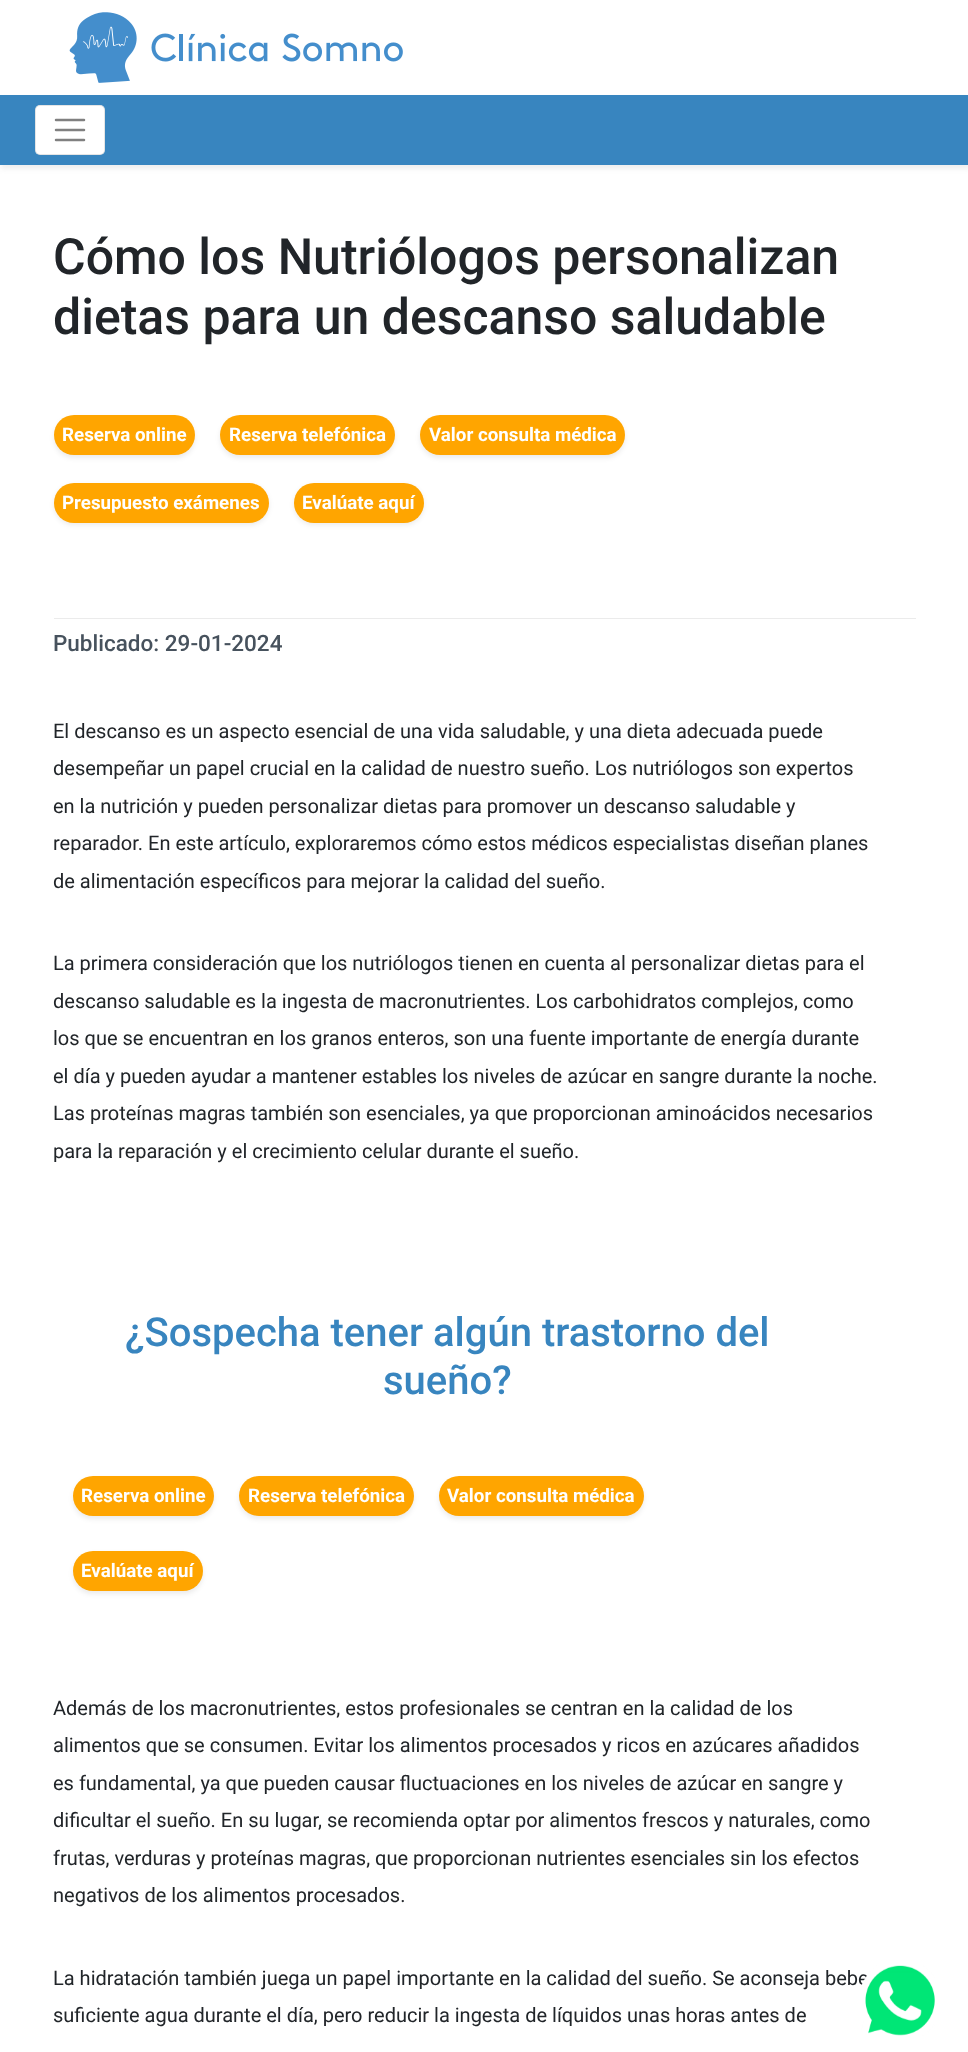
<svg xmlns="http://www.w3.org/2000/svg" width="968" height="2052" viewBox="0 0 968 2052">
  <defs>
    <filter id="blur1" x="-50%" y="-200%" width="200%" height="500%"><feGaussianBlur stdDeviation="2.5"/></filter>
  </defs>
  <rect width="100%" height="100%" fill="#ffffff"/>
  <image x="69" y="12" width="334" height="71" href="img1.png"/>
  <rect x="1" y="99" width="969" height="70" fill="#adadad" fill-opacity="0.2" filter="url(#blur1)"/>
  <rect x="0" y="95" width="968" height="70" fill="#3885bf"/>
  <rect x="35" y="105" width="70" height="50" rx="5" fill="#ffffff"/>
  <rect x="35.5" y="105.5" width="69" height="49" rx="4.5" fill="none" stroke="#000000" stroke-opacity="0.1"/>
  <path d="M56 120H84M56 130H84M56 140H84" fill="none" stroke="#808080" stroke-width="2.5" stroke-linecap="round"/>
  <text x="53" y="274" font-family="Roboto" font-size="50" font-weight="500" fill="#212529">Cómo los Nutriólogos personalizan</text>
  <text x="53" y="334" font-family="Roboto" font-size="50" font-weight="500" fill="#212529">dietas para un descanso saludable</text>
  <rect x="54" y="418" width="141" height="40" rx="20" fill="#000000" fill-opacity="0.08" filter="url(#blur1)"/>
  <rect x="54" y="415" width="141" height="40" rx="20" fill="#ffa500"/>
  <text x="62" y="441" font-family="Roboto" font-size="18.75" font-weight="bold" fill="#ffffff">Reserva online</text>
  <rect x="220" y="418" width="175" height="40" rx="20" fill="#000000" fill-opacity="0.08" filter="url(#blur1)"/>
  <rect x="220" y="415" width="175" height="40" rx="20" fill="#ffa500"/>
  <text x="229" y="441" font-family="Roboto" font-size="18.75" font-weight="bold" fill="#ffffff">Reserva telefónica</text>
  <rect x="420" y="418" width="205" height="40" rx="20" fill="#000000" fill-opacity="0.08" filter="url(#blur1)"/>
  <rect x="420" y="415" width="205" height="40" rx="20" fill="#ffa500"/>
  <text x="429" y="441" font-family="Roboto" font-size="18.75" font-weight="bold" fill="#ffffff">Valor consulta médica</text>
  <rect x="54" y="485" width="215" height="40" rx="20" fill="#000000" fill-opacity="0.08" filter="url(#blur1)"/>
  <rect x="54" y="483" width="215" height="40" rx="20" fill="#ffa500"/>
  <text x="62" y="509" font-family="Roboto" font-size="18.75" font-weight="bold" fill="#ffffff">Presupuesto exámenes</text>
  <rect x="294" y="485" width="130" height="40" rx="20" fill="#000000" fill-opacity="0.08" filter="url(#blur1)"/>
  <rect x="294" y="483" width="130" height="40" rx="20" fill="#ffa500"/>
  <text x="302" y="509" font-family="Roboto" font-size="18.75" font-weight="bold" fill="#ffffff">Evalúate aquí</text>
  <text x="53" y="651" font-family="Roboto" font-size="22.5" font-weight="500" fill="#47525d">Publicado: 29-01-2024</text>
  <rect x="54" y="618" width="862" height="1" fill="#ebebeb"/>
  <text x="53" y="738" font-family="Roboto" font-size="20" fill="#212529">El descanso es un aspecto esencial de una vida saludable, y una dieta adecuada puede</text>
  <text x="53" y="775" font-family="Roboto" font-size="20" fill="#212529">desempeñar un papel crucial en la calidad de nuestro sueño. Los nutriólogos son expertos</text>
  <text x="53" y="813" font-family="Roboto" font-size="20" fill="#212529">en la nutrición y pueden personalizar dietas para promover un descanso saludable y</text>
  <text x="53" y="850" font-family="Roboto" font-size="20" fill="#212529">reparador. En este artículo, exploraremos cómo estos médicos especialistas diseñan planes</text>
  <text x="53" y="888" font-family="Roboto" font-size="20" fill="#212529">de alimentación específicos para mejorar la calidad del sueño.</text>
  <text x="53" y="970" font-family="Roboto" font-size="20" fill="#212529">La primera consideración que los nutriólogos tienen en cuenta al personalizar dietas para el</text>
  <text x="53" y="1008" font-family="Roboto" font-size="20" fill="#212529">descanso saludable es la ingesta de macronutrientes. Los carbohidratos complejos, como</text>
  <text x="53" y="1045" font-family="Roboto" font-size="20" fill="#212529">los que se encuentran en los granos enteros, son una fuente importante de energía durante</text>
  <text x="53" y="1083" font-family="Roboto" font-size="20" fill="#212529">el día y pueden ayudar a mantener estables los niveles de azúcar en sangre durante la noche.</text>
  <text x="53" y="1120" font-family="Roboto" font-size="20" fill="#212529">Las proteínas magras también son esenciales, ya que proporcionan aminoácidos necesarios</text>
  <text x="53" y="1158" font-family="Roboto" font-size="20" fill="#212529">para la reparación y el crecimiento celular durante el sueño.</text>
  <text x="125" y="1346" font-family="Roboto" font-size="40" font-weight="500" fill="#3885bf">¿Sospecha tener algún trastorno del</text>
  <text x="383" y="1394" font-family="Roboto" font-size="40" font-weight="500" fill="#3885bf">sueño?</text>
  <rect x="73" y="1479" width="141" height="40" rx="20" fill="#000000" fill-opacity="0.08" filter="url(#blur1)"/>
  <rect x="73" y="1476" width="141" height="40" rx="20" fill="#ffa500"/>
  <text x="81" y="1502" font-family="Roboto" font-size="18.75" font-weight="bold" fill="#ffffff">Reserva online</text>
  <rect x="239" y="1479" width="175" height="40" rx="20" fill="#000000" fill-opacity="0.08" filter="url(#blur1)"/>
  <rect x="239" y="1476" width="175" height="40" rx="20" fill="#ffa500"/>
  <text x="248" y="1502" font-family="Roboto" font-size="18.75" font-weight="bold" fill="#ffffff">Reserva telefónica</text>
  <rect x="439" y="1479" width="205" height="40" rx="20" fill="#000000" fill-opacity="0.08" filter="url(#blur1)"/>
  <rect x="439" y="1476" width="205" height="40" rx="20" fill="#ffa500"/>
  <text x="447" y="1502" font-family="Roboto" font-size="18.75" font-weight="bold" fill="#ffffff">Valor consulta médica</text>
  <rect x="73" y="1554" width="130" height="40" rx="20" fill="#000000" fill-opacity="0.08" filter="url(#blur1)"/>
  <rect x="73" y="1551" width="130" height="40" rx="20" fill="#ffa500"/>
  <text x="81" y="1577" font-family="Roboto" font-size="18.75" font-weight="bold" fill="#ffffff">Evalúate aquí</text>
  <text x="53" y="1715" font-family="Roboto" font-size="20" fill="#212529">Además de los macronutrientes, estos profesionales se centran en la calidad de los</text>
  <text x="53" y="1752" font-family="Roboto" font-size="20" fill="#212529">alimentos que se consumen. Evitar los alimentos procesados y ricos en azúcares añadidos</text>
  <text x="53" y="1790" font-family="Roboto" font-size="20" fill="#212529">es fundamental, ya que pueden causar fluctuaciones en los niveles de azúcar en sangre y</text>
  <text x="53" y="1827" font-family="Roboto" font-size="20" fill="#212529">dificultar el sueño. En su lugar, se recomienda optar por alimentos frescos y naturales, como</text>
  <text x="53" y="1865" font-family="Roboto" font-size="20" fill="#212529">frutas, verduras y proteínas magras, que proporcionan nutrientes esenciales sin los efectos</text>
  <text x="53" y="1902" font-family="Roboto" font-size="20" fill="#212529">negativos de los alimentos procesados.</text>
  <text x="53" y="1985" font-family="Roboto" font-size="20" fill="#212529">La hidratación también juega un papel importante en la calidad del sueño. Se aconseja bebe</text>
  <text x="53" y="2022" font-family="Roboto" font-size="20" fill="#212529">suficiente agua durante el día, pero reducir la ingesta de líquidos unas horas antes de</text>
  <image x="861" y="1965" width="74" height="71" href="img2.png"/>
</svg>
